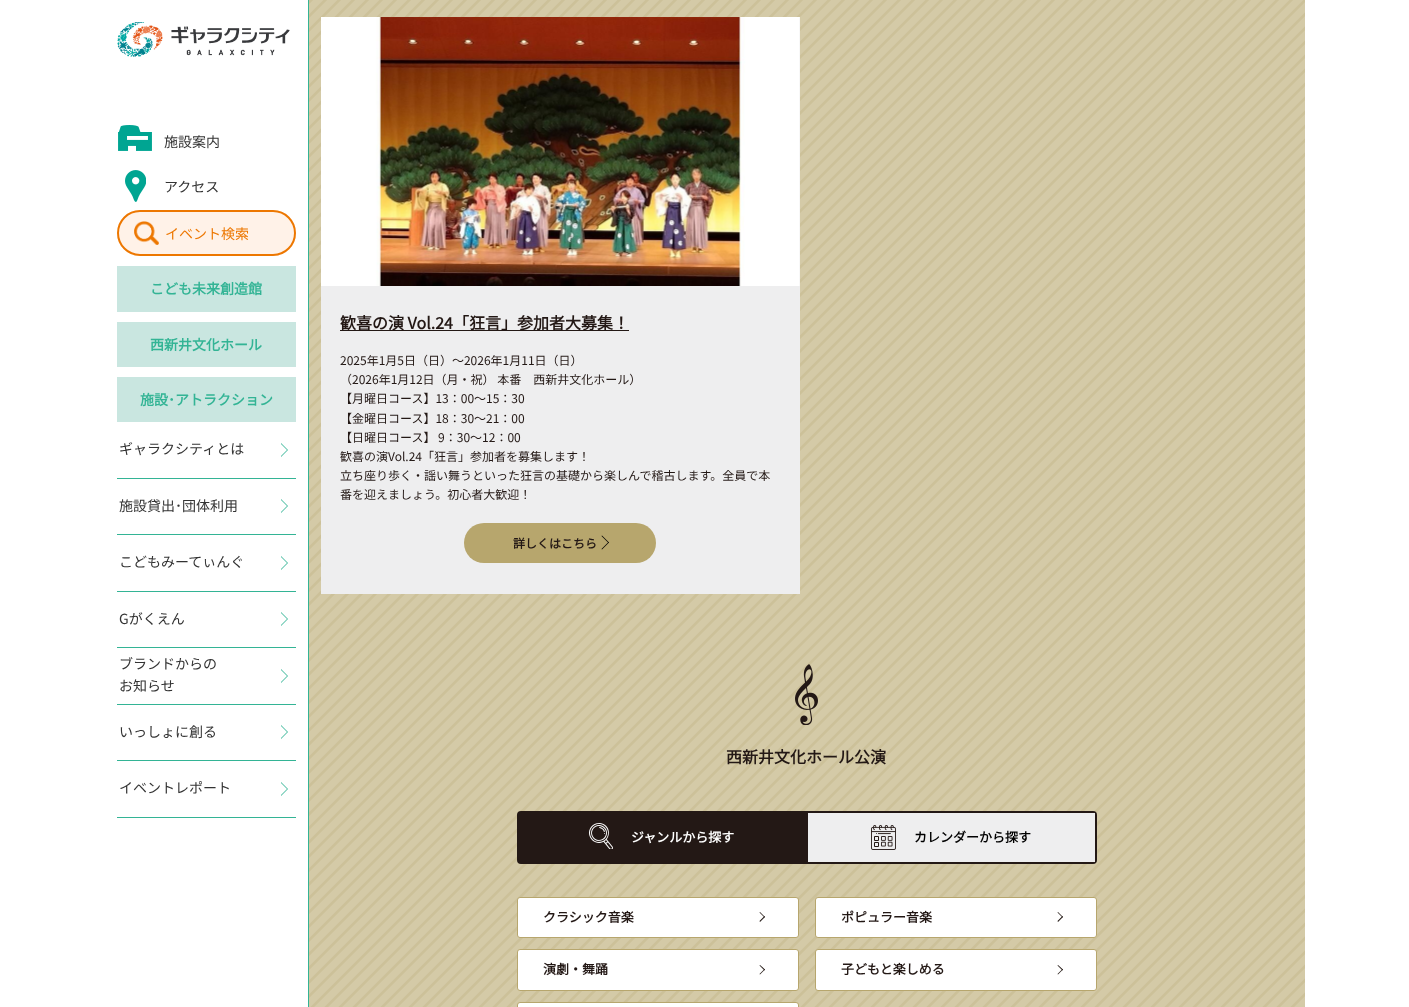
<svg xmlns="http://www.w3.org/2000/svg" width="1409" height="1007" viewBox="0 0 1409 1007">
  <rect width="100%" height="100%" fill="#ffffff"/>
  <rect x="308" y="0" width="1" height="1007" fill="#33b495"/>
  <image x="117" y="22" width="173" height="35" href="img1.png"/>
  <image x="118" y="125" width="34" height="26" href="img2.png"/>
  <text x="164" y="147" font-family="Noto Sans JP" font-size="14" font-weight="100" fill="#333333">施設案内</text>
  <image x="125" y="170" width="21" height="32" href="img3.png"/>
  <text x="164" y="192" font-family="Noto Sans JP" font-size="14" font-weight="100" fill="#333333">アクセス</text>
  <rect x="117" y="210" width="179" height="46" rx="23" fill="#fff2e8"/>
  <image x="134" y="221" width="25" height="24" href="img4.png"/>
  <rect x="118" y="211" width="177" height="44" rx="22" fill="none" stroke="#ed7700" stroke-width="2"/>
  <text x="165" y="239" font-family="Noto Sans JP" font-size="14" font-weight="100" fill="#ed7700">イベント検索</text>
  <rect x="117" y="266" width="179" height="46" fill="#c9e6e0"/>
  <text x="150" y="294" font-family="Noto Sans JP" font-size="14" font-weight="bold" fill="#33b495">こども未来創造館</text>
  <rect x="117" y="322" width="179" height="45" fill="#c9e6e0"/>
  <text x="150" y="350" font-family="Noto Sans JP" font-size="14" font-weight="bold" fill="#33b495">西新井文化ホール</text>
  <rect x="117" y="377" width="179" height="45" fill="#c9e6e0"/>
  <text x="140" y="405" font-family="Noto Sans JP" font-size="14" font-weight="bold" fill="#33b495">施設･アトラクション</text>
  <rect x="117" y="478" width="179" height="1" fill="#33b495"/>
  <text x="119" y="454" font-family="Noto Sans JP" font-size="14" font-weight="100" fill="#333333">ギャラクシティとは</text>
  <path d="M281 457V443L288 450Z" fill="#33b495"/>
  <path d="M281 456V444L287 450Z" fill="#ffffff"/>
  <rect x="117" y="534" width="179" height="1" fill="#33b495"/>
  <text x="119" y="511" font-family="Noto Sans JP" font-size="14" font-weight="100" fill="#333333">施設貸出･団体利用</text>
  <path d="M281 513V499L288 506Z" fill="#33b495"/>
  <path d="M281 512V500L287 506Z" fill="#ffffff"/>
  <rect x="117" y="591" width="179" height="1" fill="#33b495"/>
  <text x="119" y="567" font-family="Noto Sans JP" font-size="14" font-weight="100" fill="#333333">こどもみーてぃんぐ</text>
  <path d="M281 570V556L288 563Z" fill="#33b495"/>
  <path d="M281 569V557L287 563Z" fill="#ffffff"/>
  <rect x="117" y="647" width="179" height="1" fill="#33b495"/>
  <text x="119" y="624" font-family="Noto Sans JP" font-size="14" font-weight="100" fill="#333333">Gがくえん</text>
  <path d="M281 626V612L288 619Z" fill="#33b495"/>
  <path d="M281 625V613L287 619Z" fill="#ffffff"/>
  <rect x="117" y="704" width="179" height="1" fill="#33b495"/>
  <text x="119" y="669" font-family="Noto Sans JP" font-size="14" font-weight="100" fill="#333333">ブランドからの</text>
  <text x="119" y="691" font-family="Noto Sans JP" font-size="14" font-weight="100" fill="#333333">お知らせ</text>
  <path d="M281 683V669L288 676Z" fill="#33b495"/>
  <path d="M281 682V670L287 676Z" fill="#ffffff"/>
  <rect x="117" y="760" width="179" height="1" fill="#33b495"/>
  <text x="119" y="737" font-family="Noto Sans JP" font-size="14" font-weight="100" fill="#333333">いっしょに創る</text>
  <path d="M281 739V725L288 732Z" fill="#33b495"/>
  <path d="M281 738V726L287 732Z" fill="#ffffff"/>
  <rect x="117" y="817" width="179" height="1" fill="#33b495"/>
  <text x="119" y="793" font-family="Noto Sans JP" font-size="14" font-weight="100" fill="#333333">イベントレポート</text>
  <path d="M281 796V782L288 789Z" fill="#33b495"/>
  <path d="M281 795V783L287 789Z" fill="#ffffff"/>
  <image x="309" y="0" width="996" height="1007" href="img5.png"/>
  <rect x="321" y="17" width="479" height="577" fill="#eeeeef"/>
  <image x="321" y="17" width="479" height="269" href="img6.png"/>
  <rect x="340" y="330" width="289" height="1" fill="#231815"/>
  <text x="340" y="329" font-family="Noto Sans JP" font-size="16" font-weight="bold" fill="#231815">歓喜の演 Vol.24「狂言」参加者大募集！</text>
  <text x="340" y="365" font-family="Noto Sans JP" font-size="12" font-weight="100" fill="#231815">2025年1月5日（日）～2026年1月11日（日）</text>
  <text x="340" y="384" font-family="Noto Sans JP" font-size="12" font-weight="100" fill="#231815">（2026年1月12日（月・祝） 本番　西新井文化ホール）</text>
  <text x="340" y="403" font-family="Noto Sans JP" font-size="12" font-weight="100" fill="#231815">【月曜日コース】13：00～15：30</text>
  <text x="340" y="423" font-family="Noto Sans JP" font-size="12" font-weight="100" fill="#231815">【金曜日コース】18：30～21：00</text>
  <text x="340" y="442" font-family="Noto Sans JP" font-size="12" font-weight="100" fill="#231815">【日曜日コース】 9：30～12：00</text>
  <text x="340" y="461" font-family="Noto Sans JP" font-size="12" font-weight="100" fill="#231815">歓喜の演Vol.24「狂言」参加者を募集します！</text>
  <text x="340" y="480" font-family="Noto Sans JP" font-size="12" font-weight="100" fill="#231815">立ち座り歩く・謡い舞うといった狂言の基礎から楽しんで稽古します。全員で本</text>
  <text x="340" y="499" font-family="Noto Sans JP" font-size="12" font-weight="100" fill="#231815">番を迎えましょう。初心者大歓迎！</text>
  <rect x="464" y="523" width="192" height="40" rx="20" fill="#b7a66d"/>
  <text x="513" y="548" font-family="Noto Sans JP" font-size="12" font-weight="bold" fill="#231815">詳しくはこちら</text>
  <path d="M602 535.5L609 542.5L608.5 543L601.5 536Z" fill="#000000"/>
  <path d="M608.5 542L609 542.5L602 549.5L601.5 549Z" fill="#000000"/>
  <image x="795" y="664" width="23" height="61" href="img7.png"/>
  <text x="726" y="763" font-family="Noto Sans JP" font-size="16" font-weight="bold" fill="#231815">西新井文化ホール公演</text>
  <rect x="518" y="812" width="578" height="51" rx="3" fill="none" stroke="#231815" stroke-width="2"/>
  <rect x="519" y="813" width="289" height="49" fill="#231815"/>
  <image x="589" y="823" width="24" height="26" href="img8.png"/>
  <text x="631" y="842" font-family="Noto Sans JP" font-size="13" font-weight="bold" fill="#ffffff">ジャンルから探す</text>
  <rect x="808" y="813" width="287" height="49" fill="#eeeeef"/>
  <image x="871" y="825" width="25" height="25" href="img9.png"/>
  <text x="914" y="842" font-family="Noto Sans JP" font-size="13" font-weight="bold" fill="#000000">カレンダーから探す</text>
  <rect x="517.5" y="897.5" width="281" height="40" rx="2.5" fill="#ffffff" stroke="#b7a66d"/>
  <text x="543" y="922" font-family="Noto Sans JP" font-size="13" font-weight="bold" fill="#231815">クラシック音楽</text>
  <path d="M760 912L765 917L764.5 917.5L759.5 912.5Z" fill="#231815"/>
  <path d="M764.5 916L765 917L760 922L759.5 921Z" fill="#231815"/>
  <rect x="815.5" y="897.5" width="281" height="40" rx="2.5" fill="#ffffff" stroke="#b7a66d"/>
  <text x="841" y="922" font-family="Noto Sans JP" font-size="13" font-weight="bold" fill="#231815">ポピュラー音楽</text>
  <path d="M1058 912L1063 917L1062.5 917.5L1057.5 912.5Z" fill="#231815"/>
  <path d="M1062.5 916L1063 917L1058 922L1057.5 921Z" fill="#231815"/>
  <rect x="517.5" y="949.5" width="281" height="41" rx="2.5" fill="#ffffff" stroke="#b7a66d"/>
  <text x="543" y="974" font-family="Noto Sans JP" font-size="13" font-weight="bold" fill="#231815">演劇・舞踊</text>
  <path d="M760 965L765 969.5L764.5 970.5L759.5 965.5Z" fill="#231815"/>
  <path d="M764.5 969L765 969.5L760 974.5L759.5 974Z" fill="#231815"/>
  <rect x="815.5" y="949.5" width="281" height="41" rx="2.5" fill="#ffffff" stroke="#b7a66d"/>
  <text x="841" y="974" font-family="Noto Sans JP" font-size="13" font-weight="bold" fill="#231815">子どもと楽しめる</text>
  <path d="M1058 965L1063 969.5L1062.5 970.5L1057.5 965.5Z" fill="#231815"/>
  <path d="M1062.5 969L1063 969.5L1058 974.5L1057.5 974Z" fill="#231815"/>
  <rect x="517.5" y="1002.5" width="281" height="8" rx="2.5" fill="#ffffff" stroke="#b7a66d"/>
</svg>
